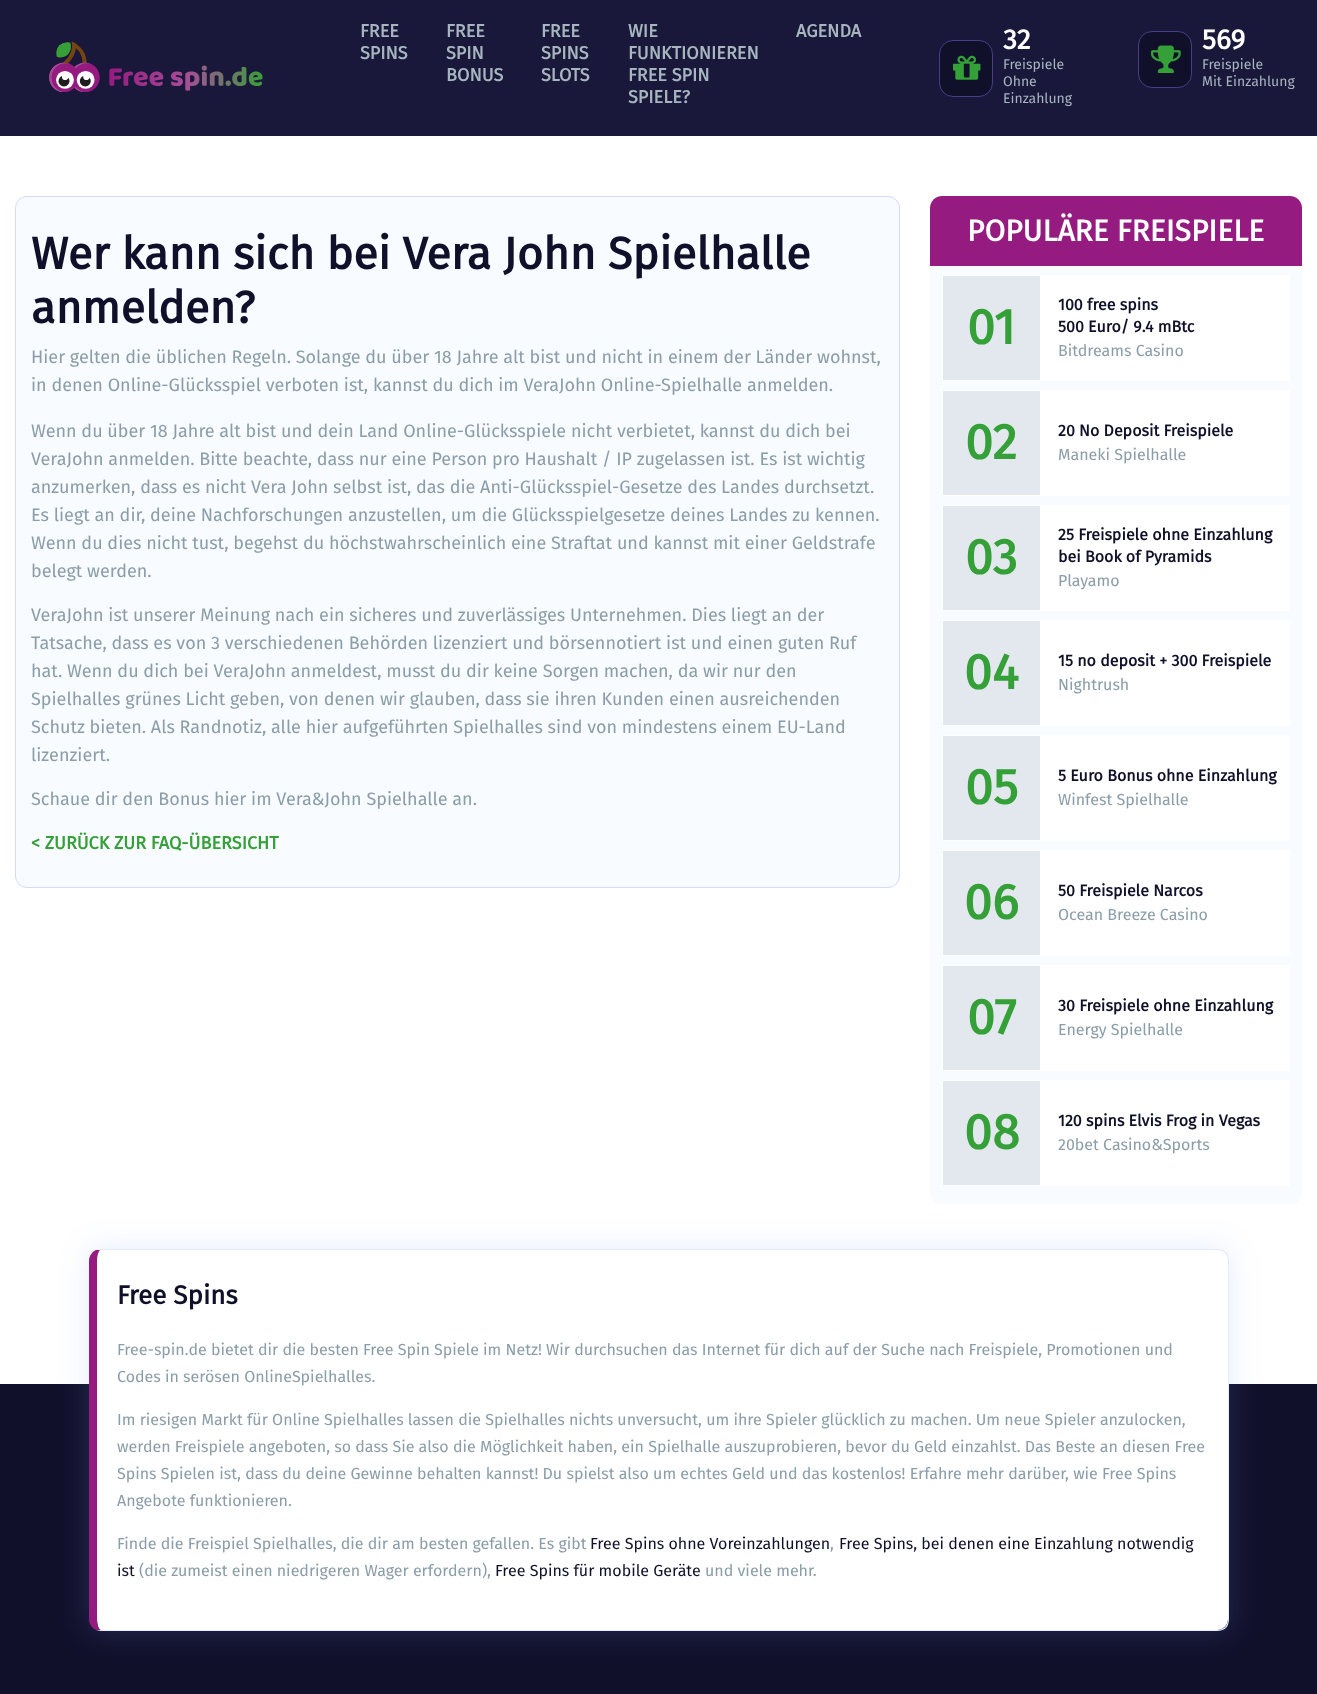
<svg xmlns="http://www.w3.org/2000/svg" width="1317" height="1694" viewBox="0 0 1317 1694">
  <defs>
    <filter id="blur1" x="-50%" y="-200%" width="200%" height="500%"><feGaussianBlur stdDeviation="15"/></filter>
  </defs>
  <rect width="100%" height="100%" fill="#ffffff"/>
  <rect x="0" y="0" width="1317" height="136" fill="#19183b"/>
  <image x="49" y="41" width="214" height="51" href="img1.png"/>
  <text x="360" y="37" font-family="Fira Sans" font-size="18" font-weight="bold" fill="#a6b5be">FREE</text>
  <text x="360" y="59" font-family="Fira Sans" font-size="18" font-weight="bold" fill="#a6b5be">SPINS</text>
  <text x="446" y="37" font-family="Fira Sans" font-size="18" font-weight="bold" fill="#a6b5be">FREE</text>
  <text x="446" y="59" font-family="Fira Sans" font-size="18" font-weight="bold" fill="#a6b5be">SPIN</text>
  <text x="446" y="81" font-family="Fira Sans" font-size="18" font-weight="bold" fill="#a6b5be">BONUS</text>
  <text x="541" y="37" font-family="Fira Sans" font-size="18" font-weight="bold" fill="#a6b5be">FREE</text>
  <text x="541" y="59" font-family="Fira Sans" font-size="18" font-weight="bold" fill="#a6b5be">SPINS</text>
  <text x="541" y="81" font-family="Fira Sans" font-size="18" font-weight="bold" fill="#a6b5be">SLOTS</text>
  <text x="628" y="37" font-family="Fira Sans" font-size="18" font-weight="bold" fill="#a6b5be">WIE</text>
  <text x="628" y="59" font-family="Fira Sans" font-size="18" font-weight="bold" fill="#a6b5be">FUNKTIONIEREN</text>
  <text x="628" y="81" font-family="Fira Sans" font-size="18" font-weight="bold" fill="#a6b5be">FREE SPIN</text>
  <text x="628" y="103" font-family="Fira Sans" font-size="18" font-weight="bold" fill="#a6b5be">SPIELE?</text>
  <text x="796" y="37" font-family="Fira Sans" font-size="18" font-weight="bold" fill="#a6b5be">AGENDA</text>
  <rect x="939.5" y="40.5" width="53" height="56" rx="13.5" fill="#11102b" stroke="#434087"/>
  <image x="953" y="55" width="28" height="25" href="img2.png"/>
  <text x="1003" y="49" font-family="Fira Sans" font-size="28" font-weight="bold" fill="#ffffff">32</text>
  <text x="1003" y="69" font-family="Fira Sans" font-size="14" fill="#a6b5be">Freispiele</text>
  <text x="1003" y="86" font-family="Fira Sans" font-size="14" fill="#a6b5be">Ohne</text>
  <text x="1003" y="103" font-family="Fira Sans" font-size="14" fill="#a6b5be">Einzahlung</text>
  <rect x="1138.5" y="31.5" width="53" height="56" rx="13.5" fill="#11102b" stroke="#434087"/>
  <image x="1151" y="45" width="30" height="28" href="img3.png"/>
  <text x="1202" y="49" font-family="Fira Sans" font-size="28" font-weight="bold" fill="#ffffff">569</text>
  <text x="1202" y="69" font-family="Fira Sans" font-size="14" fill="#a6b5be">Freispiele</text>
  <text x="1202" y="86" font-family="Fira Sans" font-size="14" fill="#a6b5be">Mit Einzahlung</text>
  <rect x="15.5" y="196.5" width="884" height="691" rx="11.5" fill="#f8fbff" stroke="#d7d8fb"/>
  <text x="31" y="269" font-family="Fira Sans" font-size="45" font-weight="bold" fill="#11102a">Wer kann sich bei Vera John Spielhalle</text>
  <text x="31" y="323" font-family="Fira Sans" font-size="45" font-weight="bold" fill="#11102a">anmelden?</text>
  <text x="31" y="363" font-family="Fira Sans" font-size="18" fill="#8a9da8">Hier gelten die üblichen Regeln. Solange du über 18 Jahre alt bist und nicht in einem der Länder wohnst,</text>
  <text x="31" y="391" font-family="Fira Sans" font-size="18" fill="#8a9da8">in denen Online-Glücksspiel verboten ist, kannst du dich im VeraJohn Online-Spielhalle anmelden.</text>
  <text x="31" y="437" font-family="Fira Sans" font-size="18" fill="#8a9da8">Wenn du über 18 Jahre alt bist und dein Land Online-Glücksspiele nicht verbietet, kannst du dich bei</text>
  <text x="31" y="465" font-family="Fira Sans" font-size="18" fill="#8a9da8">VeraJohn anmelden. Bitte beachte, dass nur eine Person pro Haushalt / IP zugelassen ist. Es ist wichtig</text>
  <text x="31" y="493" font-family="Fira Sans" font-size="18" fill="#8a9da8">anzumerken, dass es nicht Vera John selbst ist, das die Anti-Glücksspiel-Gesetze des Landes durchsetzt.</text>
  <text x="31" y="521" font-family="Fira Sans" font-size="18" fill="#8a9da8">Es liegt an dir, deine Nachforschungen anzustellen, um die Glücksspielgesetze deines Landes zu kennen.</text>
  <text x="31" y="549" font-family="Fira Sans" font-size="18" fill="#8a9da8">Wenn du dies nicht tust, begehst du höchstwahrscheinlich eine Straftat und kannst mit einer Geldstrafe</text>
  <text x="31" y="577" font-family="Fira Sans" font-size="18" fill="#8a9da8">belegt werden.</text>
  <text x="31" y="621" font-family="Fira Sans" font-size="18" fill="#8a9da8">VeraJohn ist unserer Meinung nach ein sicheres und zuverlässiges Unternehmen. Dies liegt an der</text>
  <text x="31" y="649" font-family="Fira Sans" font-size="18" fill="#8a9da8">Tatsache, dass es von 3 verschiedenen Behörden lizenziert und börsennotiert ist und einen guten Ruf</text>
  <text x="31" y="677" font-family="Fira Sans" font-size="18" fill="#8a9da8">hat. Wenn du dich bei VeraJohn anmeldest, musst du dir keine Sorgen machen, da wir nur den</text>
  <text x="31" y="705" font-family="Fira Sans" font-size="18" fill="#8a9da8">Spielhalles grünes Licht geben, von denen wir glauben, dass sie ihren Kunden einen ausreichenden</text>
  <text x="31" y="733" font-family="Fira Sans" font-size="18" fill="#8a9da8">Schutz bieten. Als Randnotiz, alle hier aufgeführten Spielhalles sind von mindestens einem EU-Land</text>
  <text x="31" y="761" font-family="Fira Sans" font-size="18" fill="#8a9da8">lizenziert.</text>
  <text x="31" y="805" font-family="Fira Sans" font-size="18" fill="#8a9da8">Schaue dir den Bonus hier im Vera&amp;John Spielhalle an.</text>
  <text x="31" y="849" font-family="Fira Sans" font-size="18" font-weight="bold" fill="#34a037">&lt; ZURÜCK ZUR FAQ-ÜBERSICHT</text>
  <rect x="930" y="196" width="372" height="1008" rx="12" fill="#f8fbff"/>
  <path d="M942 196H1290C1296.5 196 1302 201.5 1302 208V266H930V208C930 201.5 935.5 196 942 196Z" fill="#951b81"/>
  <text x="967" y="241" font-family="Fira Sans" font-size="30" font-weight="bold" fill="#ffffff">POPULÄRE FREISPIELE</text>
  <rect x="942" y="275" width="348" height="106" fill="#ffffff"/>
  <rect x="943" y="276" width="97" height="104" fill="#e3e8ef"/>
  <text x="967" y="344" font-family="Fira Sans" font-size="50" font-weight="bold" fill="#34a037">01</text>
  <text x="1058" y="310" font-family="Fira Sans" font-size="16" font-weight="bold" fill="#11102a">100 free spins</text>
  <text x="1058" y="332" font-family="Fira Sans" font-size="16" font-weight="bold" fill="#11102a">500 Euro/ 9.4 mBtc</text>
  <text x="1058" y="356" font-family="Fira Sans" font-size="16" fill="#8a9da8">Bitdreams Casino</text>
  <rect x="942" y="390" width="348" height="106" fill="#ffffff"/>
  <rect x="943" y="391" width="97" height="104" fill="#e3e8ef"/>
  <text x="965" y="459" font-family="Fira Sans" font-size="50" font-weight="bold" fill="#34a037">02</text>
  <text x="1058" y="436" font-family="Fira Sans" font-size="16" font-weight="bold" fill="#11102a">20 No Deposit Freispiele</text>
  <text x="1058" y="460" font-family="Fira Sans" font-size="16" fill="#8a9da8">Maneki Spielhalle</text>
  <rect x="942" y="505" width="348" height="106" fill="#ffffff"/>
  <rect x="943" y="506" width="97" height="104" fill="#e3e8ef"/>
  <text x="965" y="574" font-family="Fira Sans" font-size="50" font-weight="bold" fill="#34a037">03</text>
  <text x="1058" y="540" font-family="Fira Sans" font-size="16" font-weight="bold" fill="#11102a">25 Freispiele ohne Einzahlung</text>
  <text x="1058" y="562" font-family="Fira Sans" font-size="16" font-weight="bold" fill="#11102a">bei Book of Pyramids</text>
  <text x="1058" y="586" font-family="Fira Sans" font-size="16" fill="#8a9da8">Playamo</text>
  <rect x="942" y="620" width="348" height="106" fill="#ffffff"/>
  <rect x="943" y="621" width="97" height="104" fill="#e3e8ef"/>
  <text x="964" y="689" font-family="Fira Sans" font-size="50" font-weight="bold" fill="#34a037">04</text>
  <text x="1058" y="666" font-family="Fira Sans" font-size="16" font-weight="bold" fill="#11102a">15 no deposit + 300 Freispiele</text>
  <text x="1058" y="690" font-family="Fira Sans" font-size="16" fill="#8a9da8">Nightrush</text>
  <rect x="942" y="735" width="348" height="106" fill="#ffffff"/>
  <rect x="943" y="736" width="97" height="104" fill="#e3e8ef"/>
  <text x="965" y="804" font-family="Fira Sans" font-size="50" font-weight="bold" fill="#34a037">05</text>
  <text x="1058" y="781" font-family="Fira Sans" font-size="16" font-weight="bold" fill="#11102a">5 Euro Bonus ohne Einzahlung</text>
  <text x="1058" y="805" font-family="Fira Sans" font-size="16" fill="#8a9da8">Winfest Spielhalle</text>
  <rect x="942" y="850" width="348" height="106" fill="#ffffff"/>
  <rect x="943" y="851" width="97" height="104" fill="#e3e8ef"/>
  <text x="964" y="919" font-family="Fira Sans" font-size="50" font-weight="bold" fill="#34a037">06</text>
  <text x="1058" y="896" font-family="Fira Sans" font-size="16" font-weight="bold" fill="#11102a">50 Freispiele Narcos</text>
  <text x="1058" y="920" font-family="Fira Sans" font-size="16" fill="#8a9da8">Ocean Breeze Casino</text>
  <rect x="942" y="965" width="348" height="106" fill="#ffffff"/>
  <rect x="943" y="966" width="97" height="104" fill="#e3e8ef"/>
  <text x="967" y="1034" font-family="Fira Sans" font-size="50" font-weight="bold" fill="#34a037">07</text>
  <text x="1058" y="1011" font-family="Fira Sans" font-size="16" font-weight="bold" fill="#11102a">30 Freispiele ohne Einzahlung</text>
  <text x="1058" y="1035" font-family="Fira Sans" font-size="16" fill="#8a9da8">Energy Spielhalle</text>
  <rect x="942" y="1080" width="348" height="106" fill="#ffffff"/>
  <rect x="943" y="1081" width="97" height="104" fill="#e3e8ef"/>
  <text x="964" y="1149" font-family="Fira Sans" font-size="50" font-weight="bold" fill="#34a037">08</text>
  <text x="1058" y="1126" font-family="Fira Sans" font-size="16" font-weight="bold" fill="#11102a">120 spins Elvis Frog in Vegas</text>
  <text x="1058" y="1150" font-family="Fira Sans" font-size="16" fill="#8a9da8">20bet Casino&amp;Sports</text>
  <rect x="0" y="1384" width="1317" height="310" fill="#11102b"/>
  <rect x="89" y="1249" width="1140" height="382" rx="12" fill="#719cff" fill-opacity="0.19" filter="url(#blur1)"/>
  <path d="M101 1250H1217C1223 1250 1228 1255 1228 1261V1619C1228 1625 1223 1630 1217 1630H101C99 1630 97 1625 97 1619V1261C97 1255 99 1250 101 1250Z" fill="#ffffff"/>
  <path d="M101 1249L96 1250H100H101H1217C1220 1250 1223 1251 1225 1253L1226 1252C1224 1250 1220 1249 1217 1249Z" fill="#e8e8ff"/>
  <path d="M1229 1619V1261C1229 1258 1228 1254 1226 1252L1225 1253C1227 1255 1228 1258 1228 1261V1619C1228 1622 1227 1625 1225 1627L1226 1628C1228 1626 1229 1622 1229 1619Z" fill="#e8e8ff"/>
  <path d="M101 1631H1217C1220 1631 1224 1630 1226 1628L1225 1627C1223 1629 1220 1630 1217 1630H101H100H96Z" fill="#e8e8ff"/>
  <path d="M89 1261V1619C89 1624 92 1628 96 1630H100C98 1628 97 1624 97 1619V1261C97 1256 98 1252 100 1250H96C92 1252 89 1256 89 1261Z" fill="#951b81"/>
  <text x="117" y="1304" font-family="Fira Sans" font-size="26" font-weight="bold" fill="#11102a">Free Spins</text>
  <text x="117" y="1355" font-family="Fira Sans" font-size="16" fill="#8a9da8">Free-spin.de bietet dir die besten Free Spin Spiele im Netz! Wir durchsuchen das Internet für dich auf der Suche nach Freispiele, Promotionen und</text>
  <text x="117" y="1382" font-family="Fira Sans" font-size="16" fill="#8a9da8">Codes in serösen OnlineSpielhalles.</text>
  <text x="117" y="1425" font-family="Fira Sans" font-size="16" fill="#8a9da8">Im riesigen Markt für Online Spielhalles lassen die Spielhalles nichts unversucht, um ihre Spieler glücklich zu machen. Um neue Spieler anzulocken,</text>
  <text x="117" y="1452" font-family="Fira Sans" font-size="16" fill="#8a9da8">werden Freispiele angeboten, so dass Sie also die Möglichkeit haben, ein Spielhalle auszuprobieren, bevor du Geld einzahlst. Das Beste an diesen Free</text>
  <text x="117" y="1479" font-family="Fira Sans" font-size="16" fill="#8a9da8">Spins Spielen ist, dass du deine Gewinne behalten kannst! Du spielst also um echtes Geld und das kostenlos! Erfahre mehr darüber, wie Free Spins</text>
  <text x="117" y="1506" font-family="Fira Sans" font-size="16" fill="#8a9da8">Angebote funktionieren.</text>
  <text x="117" y="1549" font-family="Fira Sans" font-size="16" fill="#8a9da8">Finde die Freispiel Spielhalles, die dir am besten gefallen. Es gibt</text>
  <text x="590" y="1549" font-family="Fira Sans" font-size="16" fill="#11102a">Free Spins ohne Voreinzahlungen</text>
  <text x="830" y="1549" font-family="Fira Sans" font-size="16" fill="#8a9da8">,</text>
  <text x="839" y="1549" font-family="Fira Sans" font-size="16" fill="#11102a">Free Spins, bei denen eine Einzahlung notwendig</text>
  <text x="117" y="1576" font-family="Fira Sans" font-size="16" fill="#11102a">ist</text>
  <text x="139" y="1576" font-family="Fira Sans" font-size="16" fill="#8a9da8">(die zumeist einen niedrigeren Wager erfordern),</text>
  <text x="495" y="1576" font-family="Fira Sans" font-size="16" fill="#11102a">Free Spins für mobile Geräte</text>
  <text x="705" y="1576" font-family="Fira Sans" font-size="16" fill="#8a9da8">und viele mehr.</text>
</svg>
